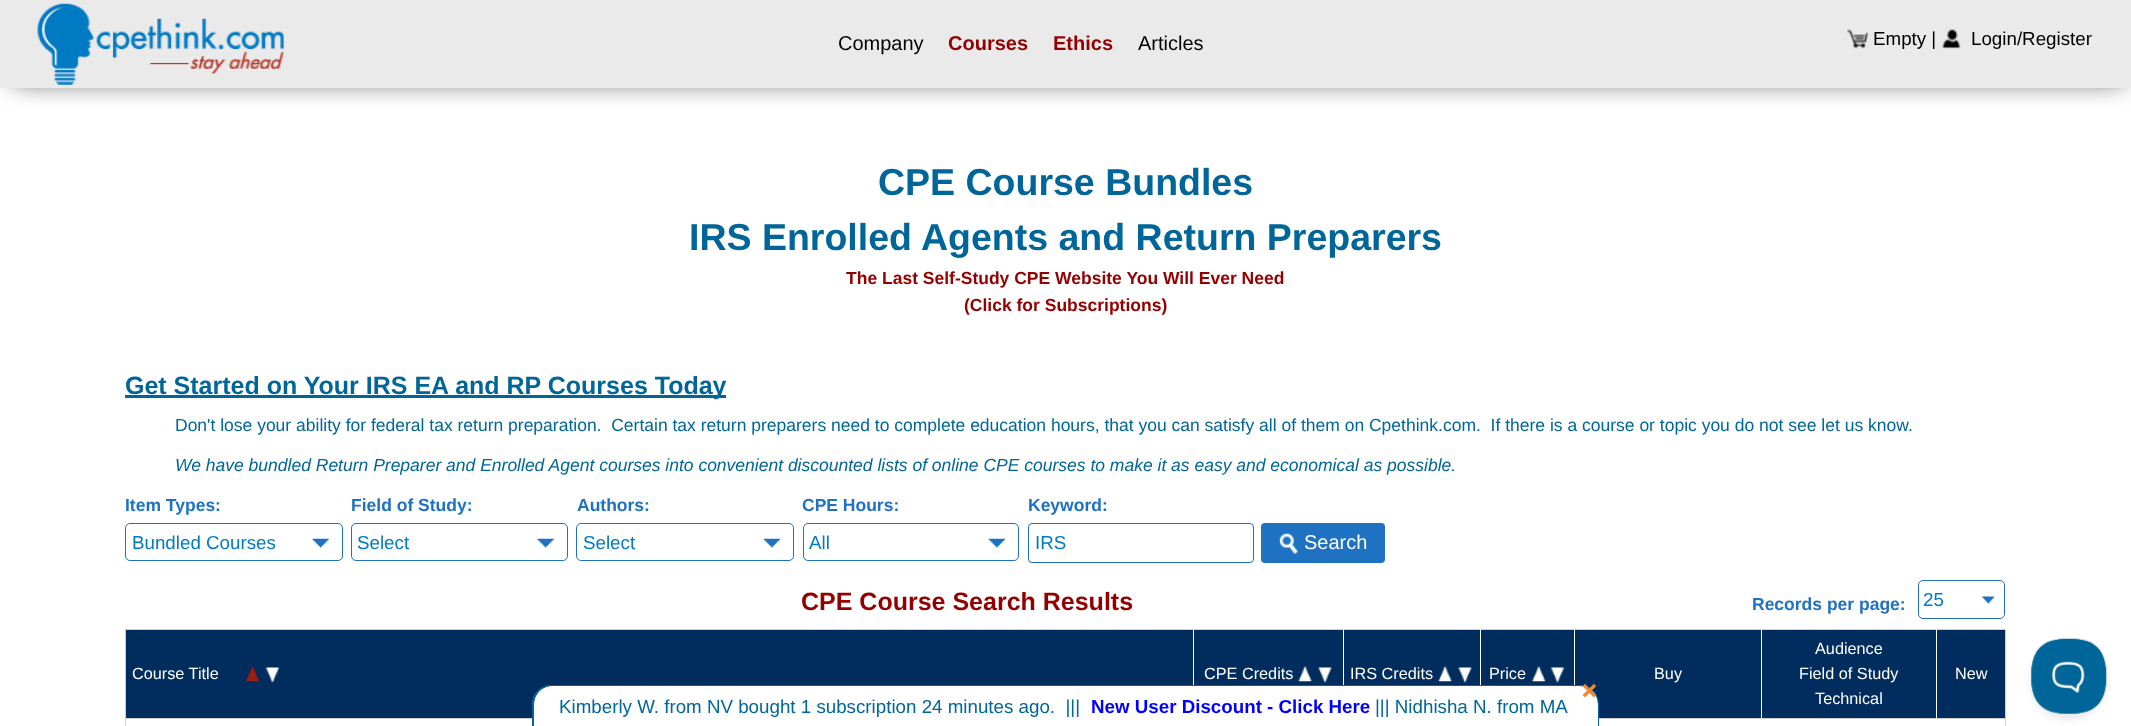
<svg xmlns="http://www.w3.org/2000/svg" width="2131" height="726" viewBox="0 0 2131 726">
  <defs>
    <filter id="blur1" x="-50%" y="-200%" width="200%" height="500%"><feGaussianBlur stdDeviation="13"/></filter>
    <filter id="blur2" x="-50%" y="-200%" width="200%" height="500%"><feGaussianBlur stdDeviation="4.5"/></filter>
  </defs>
  <rect width="100%" height="100%" fill="#ffffff"/>
  <rect x="13" y="14" width="2111" height="67" fill="#000000" fill-opacity="0.75" filter="url(#blur1)"/>
  <rect x="0" y="0" width="2131" height="88" fill="#eaeaea"/>
  <image x="37" y="3" width="247" height="82" href="img1.png"/>
  <text x="838" y="50" font-family="Liberation Sans" font-size="20" fill="#000000">Company</text>
  <text x="948" y="50" font-family="Liberation Sans" font-size="20" font-weight="bold" fill="#940000">Courses</text>
  <text x="1053" y="50" font-family="Liberation Sans" font-size="20" font-weight="bold" fill="#940000">Ethics</text>
  <text x="1138" y="50" font-family="Liberation Sans" font-size="20" fill="#000000">Articles</text>
  <image x="1847" y="29" width="22" height="20" href="img2.png"/>
  <text x="1873" y="45" font-family="Liberation Sans" font-size="18.75" fill="#000000">Empty |</text>
  <image x="1942" y="29" width="19" height="20" href="img3.png"/>
  <text x="1971" y="45" font-family="Liberation Sans" font-size="18.75" fill="#000000">Login/Register</text>
  <text x="878" y="195" font-family="Liberation Sans" font-size="37.5" font-weight="bold" fill="#006699">CPE Course Bundles</text>
  <text x="689" y="250" font-family="Liberation Sans" font-size="37.5" font-weight="bold" fill="#006699">IRS Enrolled Agents and Return Preparers</text>
  <text x="846" y="284" font-family="Liberation Sans" font-size="17.5" font-weight="bold" fill="#940000">The Last Self-Study CPE Website You Will Ever Need</text>
  <text x="964" y="311" font-family="Liberation Sans" font-size="17.5" font-weight="bold" fill="#940000">(Click for Subscriptions)</text>
  <rect x="125" y="395" width="601" height="3" fill="#006699"/>
  <text x="125" y="394" font-family="Liberation Sans" font-size="25" font-weight="bold" fill="#006699">Get Started on Your IRS EA and RP Courses Today</text>
  <text x="175" y="431" font-family="Liberation Sans" font-size="17.5" fill="#006699" xml:space="preserve">Don't lose your ability for federal tax return preparation.  Certain tax return preparers need to complete education hours, that you can satisfy all of them on Cpethink.com.  If there is a course or topic you do not see let us know.</text>
  <text x="175" y="471" font-family="Liberation Sans" font-size="17.5" font-style="italic" fill="#006699">We have bundled Return Preparer and Enrolled Agent courses into convenient discounted lists of online CPE courses to make it as easy and economical as possible.</text>
  <text x="125" y="511" font-family="Liberation Sans" font-size="17.5" font-weight="bold" fill="#1f72c2">Item Types:</text>
  <image x="312" y="538" width="17" height="10" href="img4.png"/>
  <rect x="125.5" y="523.5" width="217" height="37" rx="4.5" fill="none" stroke="#1f72c2"/>
  <text x="132" y="549" font-family="Liberation Sans" font-size="18.75" fill="#007ac3">Bundled Courses</text>
  <text x="351" y="511" font-family="Liberation Sans" font-size="17.5" font-weight="bold" fill="#1f72c2">Field of Study:</text>
  <image x="537" y="538" width="17" height="10" href="img4.png"/>
  <rect x="351.5" y="523.5" width="216" height="37" rx="4.5" fill="none" stroke="#1f72c2"/>
  <text x="357" y="549" font-family="Liberation Sans" font-size="18.75" fill="#007ac3">Select</text>
  <text x="577" y="511" font-family="Liberation Sans" font-size="17.5" font-weight="bold" fill="#1f72c2">Authors:</text>
  <image x="763" y="538" width="18" height="10" href="img5.png"/>
  <rect x="576.5" y="523.5" width="217" height="37" rx="4.5" fill="none" stroke="#1f72c2"/>
  <text x="583" y="549" font-family="Liberation Sans" font-size="18.75" fill="#007ac3">Select</text>
  <text x="802" y="511" font-family="Liberation Sans" font-size="17.5" font-weight="bold" fill="#1f72c2">CPE Hours:</text>
  <image x="988" y="538" width="18" height="10" href="img6.png"/>
  <rect x="803.5" y="523.5" width="215" height="37" rx="4.5" fill="none" stroke="#1f72c2"/>
  <text x="809" y="549" font-family="Liberation Sans" font-size="18.75" fill="#007ac3">All</text>
  <text x="1028" y="511" font-family="Liberation Sans" font-size="17.5" font-weight="bold" fill="#1f72c2">Keyword:</text>
  <rect x="1028.5" y="523.5" width="225" height="39" rx="3.5" fill="none" stroke="#1f72c2"/>
  <text x="1035" y="549" font-family="Liberation Sans" font-size="18.75" fill="#007ac3">IRS</text>
  <rect x="1261" y="523" width="124" height="40" rx="4" fill="#1f72c2"/>
  <image x="1278" y="533" width="21" height="21" href="img7.png"/>
  <text x="1304" y="549" font-family="Liberation Sans" font-size="20" fill="#ffffff">Search</text>
  <text x="801" y="610" font-family="Liberation Sans" font-size="25" font-weight="bold" fill="#940000">CPE Course Search Results</text>
  <text x="1752" y="610" font-family="Liberation Sans" font-size="17.5" font-weight="bold" fill="#1f72c2">Records per page:</text>
  <image x="1982" y="596" width="13" height="8" href="img8.png"/>
  <rect x="1918.5" y="580.5" width="86" height="38" rx="4.5" fill="none" stroke="#1f72c2"/>
  <text x="1923" y="606" font-family="Liberation Sans" font-size="18.75" fill="#007ac3">25</text>
  <rect x="126" y="630" width="1879" height="88" fill="#002c5e"/>
  <rect x="125" y="629" width="1881" height="1" fill="#d0d0d0"/>
  <rect x="1193" y="629" width="1" height="56" fill="#ffffff"/>
  <rect x="125" y="718" width="1" height="8" fill="#d0d0d0"/>
  <rect x="125" y="718" width="407" height="1" fill="#d0d0d0"/>
  <rect x="125" y="629" width="1" height="90" fill="#d0d0d0"/>
  <text x="132" y="679" font-family="Liberation Sans" font-size="16.25" fill="#ffffff">Course Title</text>
  <image x="245" y="666" width="15" height="16" href="img9.png"/>
  <image x="265" y="667" width="15" height="16" href="img10.png"/>
  <rect x="1343" y="629" width="1" height="56" fill="#ffffff"/>
  <text x="1204" y="679" font-family="Liberation Sans" font-size="16.25" fill="#ffffff">CPE Credits</text>
  <image x="1297" y="666" width="16" height="16" href="img11.png"/>
  <image x="1317" y="667" width="15" height="16" href="img12.png"/>
  <rect x="1480" y="629" width="1" height="56" fill="#ffffff"/>
  <text x="1350" y="679" font-family="Liberation Sans" font-size="16.25" fill="#ffffff">IRS Credits</text>
  <image x="1437" y="666" width="16" height="16" href="img11.png"/>
  <image x="1457" y="667" width="15" height="16" href="img13.png"/>
  <rect x="1574" y="629" width="1" height="56" fill="#ffffff"/>
  <text x="1489" y="679" font-family="Liberation Sans" font-size="16.25" fill="#ffffff">Price</text>
  <image x="1531" y="666" width="15" height="16" href="img14.png"/>
  <image x="1550" y="667" width="15" height="16" href="img10.png"/>
  <rect x="1936" y="629" width="1" height="90" fill="#ffffff"/>
  <rect x="1761" y="718" width="177" height="1" fill="#d0d0d0"/>
  <rect x="1761" y="629" width="1" height="90" fill="#ffffff"/>
  <rect x="1599" y="718" width="164" height="1" fill="#d0d0d0"/>
  <text x="1654" y="679" font-family="Liberation Sans" font-size="16.25" fill="#ffffff">Buy</text>
  <text x="1815" y="654" font-family="Liberation Sans" font-size="16.25" fill="#ffffff">Audience</text>
  <text x="1799" y="679" font-family="Liberation Sans" font-size="16.25" fill="#ffffff">Field of Study</text>
  <text x="1815" y="704" font-family="Liberation Sans" font-size="16.25" fill="#ffffff">Technical</text>
  <rect x="1938" y="718" width="68" height="1" fill="#d0d0d0"/>
  <rect x="2005" y="718" width="1" height="8" fill="#d0d0d0"/>
  <rect x="2005" y="629" width="1" height="90" fill="#d0d0d0"/>
  <text x="1955" y="679" font-family="Liberation Sans" font-size="16.25" fill="#ffffff">New</text>
  <path d="M552 686H1580C1590 686 1598 694 1598 704V726H534V704C534 694 542 686 552 686Z" fill="#ffffff"/>
  <path d="M551 685H1580C1590 685 1599 693 1599 704V726H532V704C532 693 541 685 551 685ZM551 686H1580C1590 686 1598 694 1598 704V726H534V704C534 694 542 686 551 686Z" fill="#006699" fill-rule="evenodd"/>
  <image x="1582" y="683" width="15" height="15" href="img15.png"/>
  <text x="559" y="713" font-family="Liberation Sans" font-size="18.75" fill="#006699" xml:space="preserve">Kimberly W. from NV bought 1 subscription 24 minutes ago.  |||</text>
  <text x="1091" y="713" font-family="Liberation Sans" font-size="18.75" font-weight="bold" fill="#0000ff">New User Discount - Click Here</text>
  <text x="1375" y="713" font-family="Liberation Sans" font-size="18.75" fill="#006699">||| Nidhisha N. from MA</text>
  <rect x="2031" y="644" width="75" height="75" rx="37.5" fill="#000000" fill-opacity="0.1" filter="url(#blur2)"/>
  <image x="2031" y="638" width="76" height="76" href="img16.png"/>
</svg>
